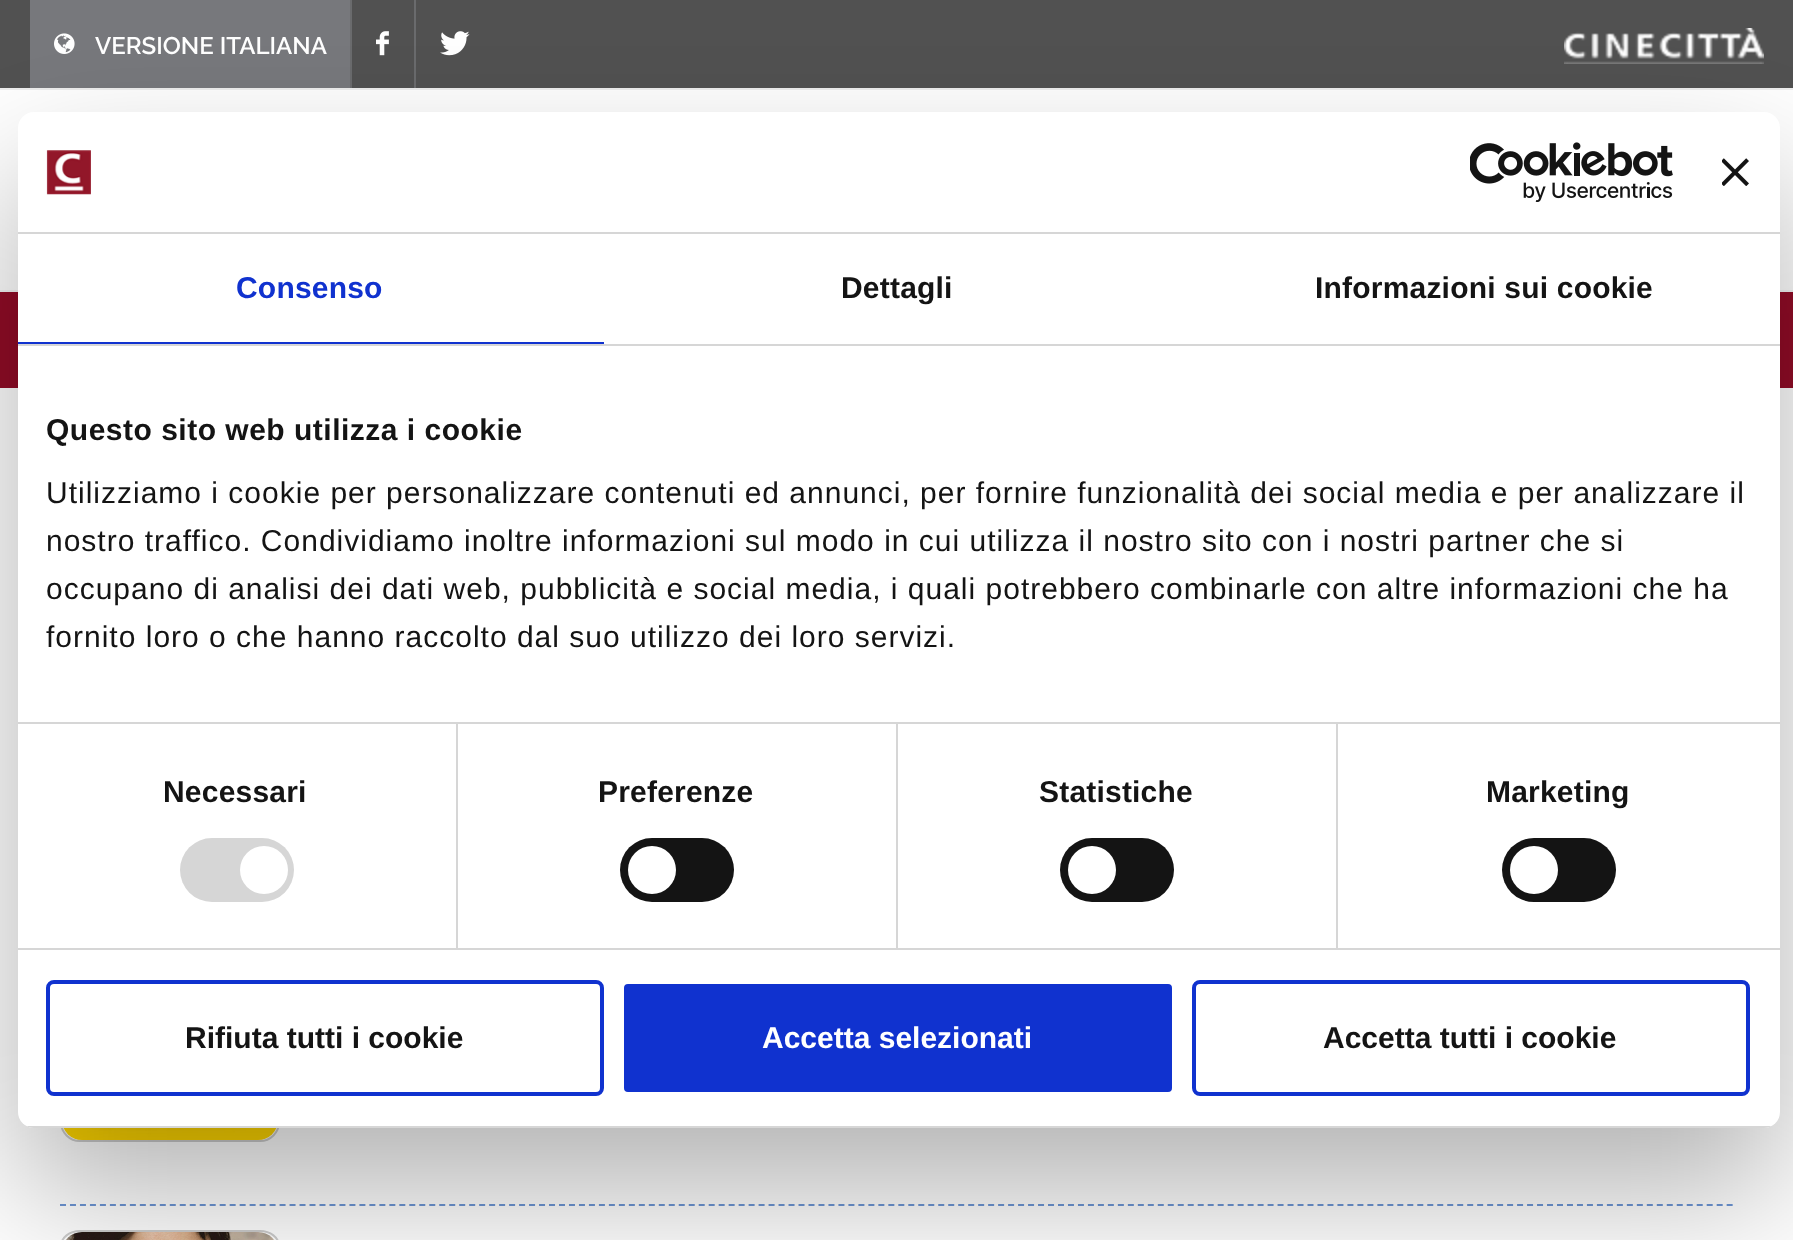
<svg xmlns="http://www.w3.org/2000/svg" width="1793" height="1240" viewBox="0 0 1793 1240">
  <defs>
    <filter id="blur1" x="-50%" y="-200%" width="200%" height="500%"><feGaussianBlur stdDeviation="68"/></filter>
    <clipPath id="clip1"><rect x="18" y="112" width="1762" height="1016" rx="16"/></clipPath>
  </defs>
  <rect width="100%" height="100%" fill="#ffffff"/>
  <rect x="0" y="0" width="1793" height="88" fill="#515151"/>
  <rect x="0" y="88" width="1793" height="2" fill="#eeeeee"/>
  <rect x="30" y="0" width="320" height="88" fill="#77787c"/>
  <image x="54" y="33" width="21" height="21" href="img1.png"/>
  <text x="95" y="54" font-family="Raleway" font-size="24" font-weight="600" fill="#ffffff">VERSIONE ITALIANA</text>
  <rect x="350" y="0" width="2" height="88" fill="#6a6b6d"/>
  <image x="376" y="31" width="13" height="25" href="img2.png"/>
  <rect x="414" y="0" width="2" height="88" fill="#6a6b6d"/>
  <image x="440" y="31" width="30" height="25" href="img3.png"/>
  <image x="1564" y="28" width="200" height="36" href="img4.png"/>
  <rect x="0" y="290" width="1793" height="2" fill="#f5f5f5"/>
  <rect x="0" y="292" width="1793" height="96" fill="#910b26"/>
  <rect x="61" y="983" width="218" height="158" rx="19" fill="none" stroke="#cccccc" stroke-width="2"/>
  <image x="63" y="1128" width="214" height="12" href="img5.png"/>
  <path d="M60 1205H1734" fill="none" stroke="#6e96d5" stroke-width="2" stroke-dasharray="6 3.98"/>
  <rect x="61" y="1231" width="218" height="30" rx="19" fill="none" stroke="#cccccc" stroke-width="2"/>
  <image x="66" y="1232" width="208" height="8" href="img6.png"/>
  <rect x="18" y="176" width="1762" height="1016" rx="16" fill="#000000" fill-opacity="0.3" filter="url(#blur1)"/>
  <rect x="18" y="112" width="1762" height="1016" rx="16" fill="#ffffff"/>
  <rect x="18" y="232" width="1762" height="2" fill="#d6d6d6"/>
  <image x="46" y="150" width="45" height="45" href="img7.png"/>
  <image x="1470" y="142" width="203" height="60" href="img8.png"/>
  <image x="1722" y="158" width="27" height="28" href="img9.png"/>
  <rect x="18" y="344" width="1762" height="2" fill="#d6d6d6"/>
  <rect x="18" y="342" width="586" height="2" fill="#1032cf"/>
  <text x="236" y="298" font-family="Liberation Sans" font-size="30" font-weight="bold" letter-spacing="0.2" fill="#1032cf">Consenso</text>
  <text x="841" y="298" font-family="Liberation Sans" font-size="30" font-weight="bold" letter-spacing="0.2" fill="#141414">Dettagli</text>
  <text x="1315" y="298" font-family="Liberation Sans" font-size="30" font-weight="bold" letter-spacing="0.2" fill="#141414">Informazioni sui cookie</text>
  <rect x="18" y="722" width="1762" height="2" fill="#d6d6d6"/>
  <text x="46" y="440" font-family="Liberation Sans" font-size="30" font-weight="bold" letter-spacing="0.5" fill="#141414">Questo sito web utilizza i cookie</text>
  <text x="46" y="503" font-family="Liberation Sans" font-size="30" letter-spacing="1" fill="#141414">Utilizziamo i cookie per personalizzare contenuti ed annunci, per fornire funzionalità dei social media e per analizzare il</text>
  <text x="46" y="551" font-family="Liberation Sans" font-size="30" letter-spacing="1" fill="#141414">nostro traffico. Condividiamo inoltre informazioni sul modo in cui utilizza il nostro sito con i nostri partner che si</text>
  <text x="46" y="599" font-family="Liberation Sans" font-size="30" letter-spacing="1" fill="#141414">occupano di analisi dei dati web, pubblicità e social media, i quali potrebbero combinarle con altre informazioni che ha</text>
  <text x="46" y="647" font-family="Liberation Sans" font-size="30" letter-spacing="1" fill="#141414">fornito loro o che hanno raccolto dal suo utilizzo dei loro servizi.</text>
  <rect x="18" y="948" width="1762" height="2" fill="#d6d6d6"/>
  <rect x="456" y="724" width="2" height="224" fill="#d6d6d6"/>
  <text x="163" y="802" font-family="Liberation Sans" font-size="30" font-weight="bold" letter-spacing="0.2" fill="#141414">Necessari</text>
  <rect x="180" y="838" width="114" height="64" rx="32" fill="#d6d6d6"/>
  <circle cx="264" cy="870" r="24" fill="#ffffff"/>
  <rect x="896" y="724" width="2" height="224" fill="#d6d6d6"/>
  <text x="598" y="802" font-family="Liberation Sans" font-size="30" font-weight="bold" letter-spacing="0.2" fill="#141414">Preferenze</text>
  <rect x="620" y="838" width="114" height="64" rx="32" fill="#141414"/>
  <circle cx="652" cy="870" r="24" fill="#ffffff"/>
  <rect x="1336" y="724" width="2" height="224" fill="#d6d6d6"/>
  <text x="1039" y="802" font-family="Liberation Sans" font-size="30" font-weight="bold" letter-spacing="0.2" fill="#141414">Statistiche</text>
  <rect x="1060" y="838" width="114" height="64" rx="32" fill="#141414"/>
  <circle cx="1092" cy="870" r="24" fill="#ffffff"/>
  <text x="1486" y="802" font-family="Liberation Sans" font-size="30" font-weight="bold" letter-spacing="0.2" fill="#141414">Marketing</text>
  <rect x="1502" y="838" width="114" height="64" rx="32" fill="#141414"/>
  <circle cx="1534" cy="870" r="24" fill="#ffffff"/>
  <g clip-path="url(#clip1)">
    <rect x="18" y="1126" width="1762" height="2" fill="#d6d6d6"/>
  </g>
  <rect x="48" y="982" width="554" height="112" rx="6" fill="none" stroke="#1032cf" stroke-width="4"/>
  <text x="185" y="1048" font-family="Liberation Sans" font-size="30" font-weight="bold" fill="#141414">Rifiuta tutti i cookie</text>
  <rect x="622" y="982" width="552" height="112" rx="6" fill="#1032cf" stroke="#ffffff" stroke-width="4"/>
  <text x="762" y="1048" font-family="Liberation Sans" font-size="30" font-weight="bold" fill="#ffffff">Accetta selezionati</text>
  <rect x="1194" y="982" width="554" height="112" rx="6" fill="none" stroke="#1032cf" stroke-width="4"/>
  <text x="1323" y="1048" font-family="Liberation Sans" font-size="30" font-weight="bold" fill="#141414">Accetta tutti i cookie</text>
</svg>
